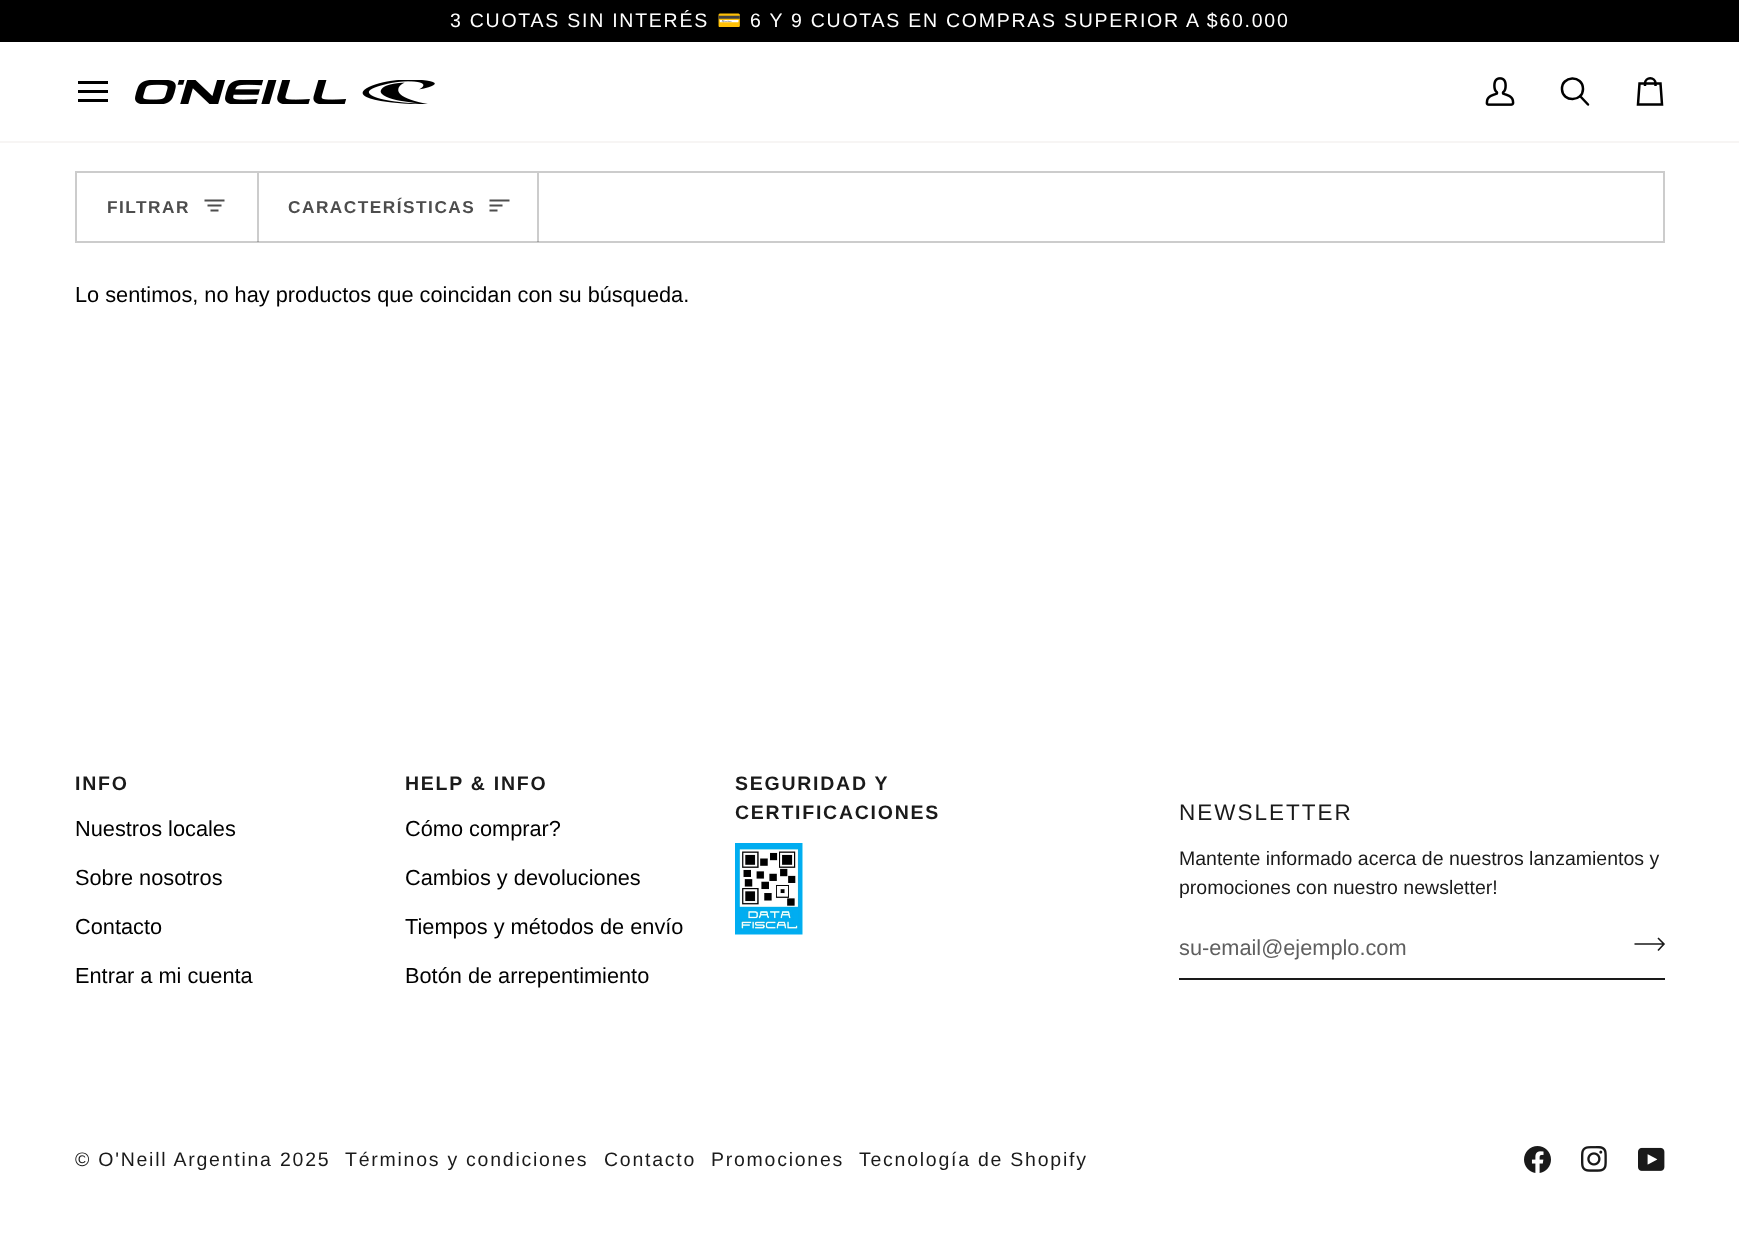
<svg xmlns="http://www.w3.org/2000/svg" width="1739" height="1234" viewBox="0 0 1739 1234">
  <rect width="100%" height="100%" fill="#ffffff"/>
  <rect x="0" y="0" width="1739" height="42" fill="#000000"/>
  <text x="450" y="27" font-family="Liberation Sans" font-size="19.5" letter-spacing="1.75" fill="#ffffff">3 CUOTAS SIN INTERÉS</text>
  <text x="717" y="27" font-family="Noto Color Emoji" font-size="19.5" letter-spacing="1.75" fill="#ffffff">💳</text>
  <text x="750" y="27" font-family="Liberation Sans" font-size="19.5" letter-spacing="1.75" fill="#ffffff">6 Y 9 CUOTAS EN COMPRAS SUPERIOR A $60.000</text>
  <rect x="0" y="141" width="1739" height="2" fill="#f7f5f4"/>
  <path d="M106.5 82.5H79.5M106.5 91.5H79.5M106.5 100.5H79.5" fill="none" stroke="#000000" stroke-width="3" stroke-linecap="square"/>
  <image x="135" y="80" width="300" height="24" href="img1.png"/>
  <image x="1485" y="77" width="30" height="29" href="img2.png"/>
  <path d="M1583 89C1583 102 1562.5 102.5 1562 89.5C1561 75.5 1583 74.5 1583 89ZM1588 104.5L1580 96Z" fill="none" stroke="#000000" stroke-width="2.5" stroke-linecap="round" stroke-linejoin="round"/>
  <path d="M1655.5 86V83.5H1660.5L1662 104.5H1638L1639.5 83.5H1645C1645 76.5 1655.5 76.5 1655.5 83.5H1645V86" fill="none" stroke="#000000" stroke-width="2.5"/>
  <rect x="76" y="172" width="1588" height="70" fill="none" stroke="#cccccc" stroke-width="2"/>
  <rect x="257" y="173" width="2" height="69" fill="#000000" fill-opacity="0.2"/>
  <text x="107" y="213" font-family="Liberation Sans" font-size="17.25" font-weight="bold" letter-spacing="1.5" fill="#4d4d4d">FILTRAR</text>
  <path d="M223.5 200.5H205.5M220.5 205.5H208.5M217.5 210.5H211.5" fill="none" stroke="#4d4d4d" stroke-width="2" stroke-linecap="square"/>
  <rect x="537" y="173" width="2" height="69" fill="#000000" fill-opacity="0.2"/>
  <text x="288" y="213" font-family="Liberation Sans" font-size="17.25" font-weight="bold" letter-spacing="1.5" fill="#4d4d4d">CARACTERÍSTICAS</text>
  <path d="M508.5 200.5H490.5M501.5 205.5H490.5M496.5 210.5H490.5" fill="none" stroke="#4d4d4d" stroke-width="2" stroke-linecap="square"/>
  <text x="75" y="302" font-family="Liberation Sans" font-size="21.75" fill="#000000">Lo sentimos, no hay productos que coincidan con su búsqueda.</text>
  <text x="75" y="790" font-family="Liberation Sans" font-size="19.5" font-weight="bold" letter-spacing="1.75" fill="#1a1a1a">INFO</text>
  <text x="75" y="836" font-family="Liberation Sans" font-size="21.75" fill="#000000">Nuestros locales</text>
  <text x="75" y="885" font-family="Liberation Sans" font-size="21.75" fill="#000000">Sobre nosotros</text>
  <text x="75" y="934" font-family="Liberation Sans" font-size="21.75" fill="#000000">Contacto</text>
  <text x="75" y="983" font-family="Liberation Sans" font-size="21.75" fill="#000000">Entrar a mi cuenta</text>
  <text x="405" y="790" font-family="Liberation Sans" font-size="19.5" font-weight="bold" letter-spacing="1.75" fill="#1a1a1a">HELP &amp; INFO</text>
  <text x="405" y="836" font-family="Liberation Sans" font-size="21.75" fill="#000000">Cómo comprar?</text>
  <text x="405" y="885" font-family="Liberation Sans" font-size="21.75" fill="#000000">Cambios y devoluciones</text>
  <text x="405" y="934" font-family="Liberation Sans" font-size="21.75" fill="#000000">Tiempos y métodos de envío</text>
  <text x="405" y="983" font-family="Liberation Sans" font-size="21.75" fill="#000000">Botón de arrepentimiento</text>
  <text x="735" y="790" font-family="Liberation Sans" font-size="19.5" font-weight="bold" letter-spacing="1.75" fill="#1a1a1a">SEGURIDAD Y</text>
  <text x="735" y="819" font-family="Liberation Sans" font-size="19.5" font-weight="bold" letter-spacing="1.75" fill="#1a1a1a">CERTIFICACIONES</text>
  <image x="735" y="843" width="68" height="92" href="img3.png"/>
  <text x="1179" y="820" font-family="Liberation Sans" font-size="22.5" letter-spacing="2" fill="#1a1a1a">NEWSLETTER</text>
  <text x="1179" y="865" font-family="Liberation Sans" font-size="19.5" fill="#1a1a1a">Mantente informado acerca de nuestros lanzamientos y</text>
  <text x="1179" y="894" font-family="Liberation Sans" font-size="19.5" fill="#1a1a1a">promociones con nuestro newsletter!</text>
  <rect x="1179" y="978" width="486" height="2" fill="#1a1a1a"/>
  <text x="1179" y="955" font-family="Liberation Sans" font-size="21.75" fill="#5f5f5f">su-email@ejemplo.com</text>
  <path d="M1658 938L1664 944L1658 950.5M1634.5 944H1664" fill="none" stroke="#1a1a1a" stroke-width="1.6"/>
  <text x="75" y="1166" font-family="Liberation Sans" font-size="19.5" letter-spacing="1.75" fill="#1a1a1a">© O'Neill Argentina</text>
  <text x="280" y="1166" font-family="Liberation Sans" font-size="19.5" letter-spacing="1.75" fill="#1a1a1a">2025</text>
  <text x="345" y="1166" font-family="Liberation Sans" font-size="19.5" letter-spacing="1.75" fill="#1a1a1a">Términos y condiciones</text>
  <text x="604" y="1166" font-family="Liberation Sans" font-size="19.5" letter-spacing="1.75" fill="#1a1a1a">Contacto</text>
  <text x="711" y="1166" font-family="Liberation Sans" font-size="19.5" letter-spacing="1.75" fill="#1a1a1a">Promociones</text>
  <text x="859" y="1166" font-family="Liberation Sans" font-size="19.5" letter-spacing="1.75" fill="#1a1a1a">Tecnología de Shopify</text>
  <image x="1524" y="1146" width="27" height="27" href="img4.png"/>
  <image x="1581" y="1146" width="26" height="26" href="img5.png"/>
  <image x="1638" y="1147" width="27" height="24" href="img6.png"/>
</svg>
